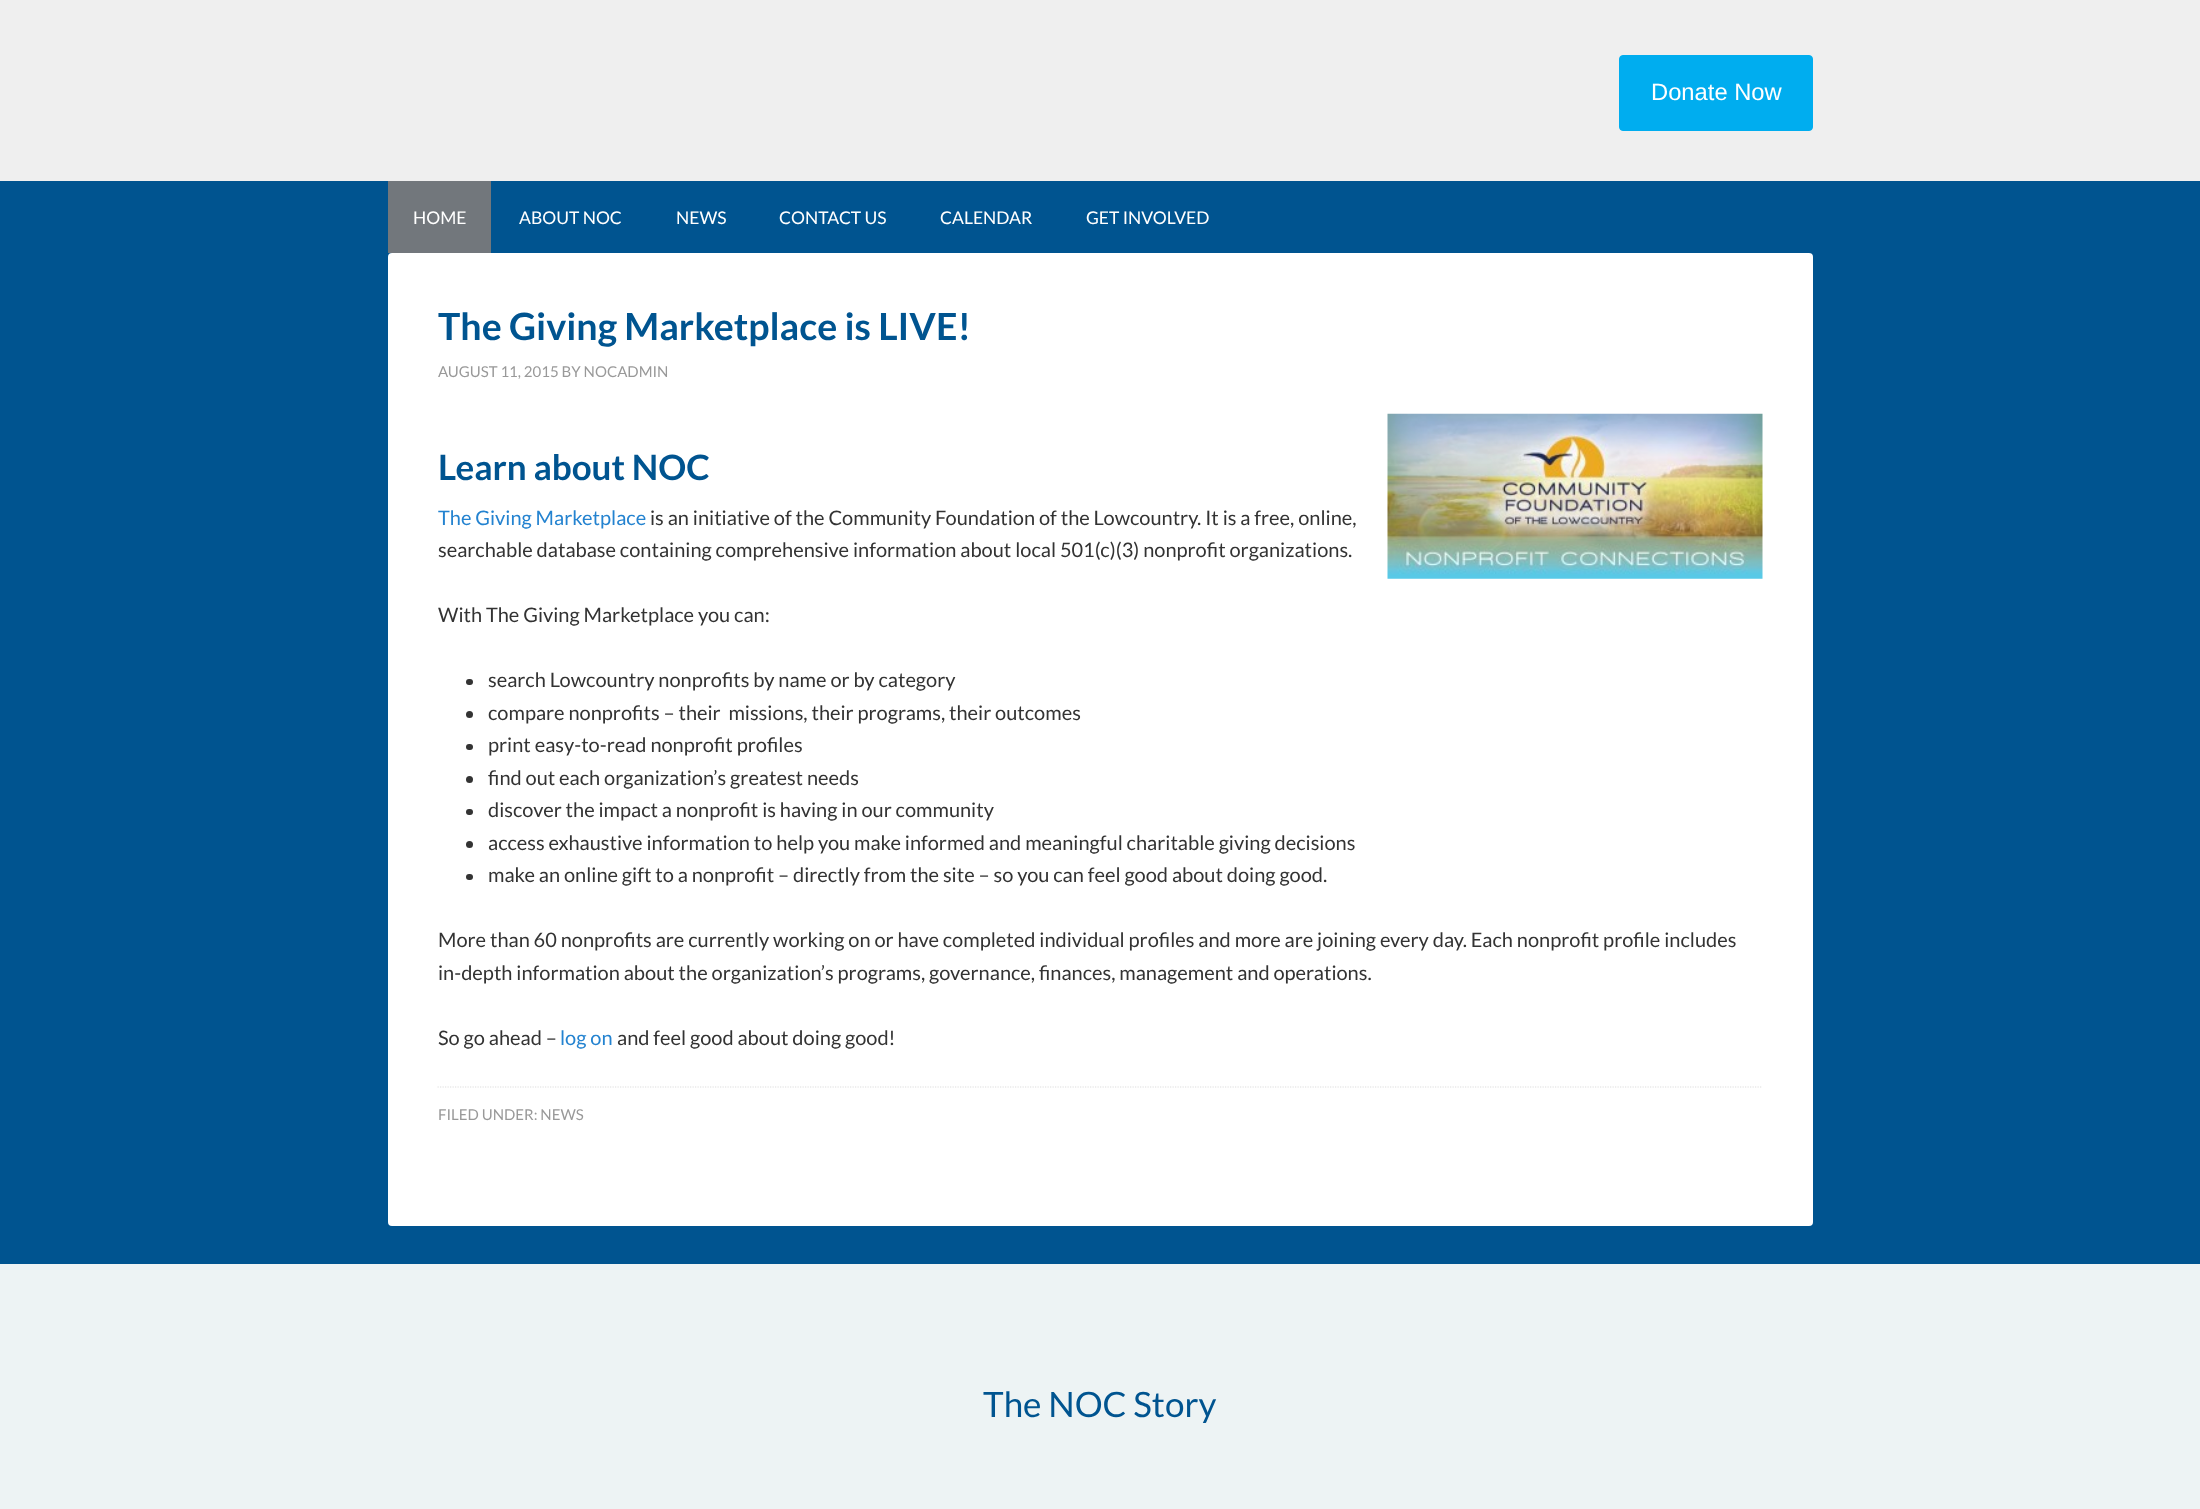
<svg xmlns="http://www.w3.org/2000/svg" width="2200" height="1509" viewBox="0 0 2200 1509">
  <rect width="100%" height="100%" fill="#005490"/>
  <rect x="0" y="0" width="2200" height="181" fill="#efefef"/>
  <rect x="1619.5" y="55.5" width="193" height="75" rx="3.5" fill="#00adef" stroke="#00adef"/>
  <text x="1651" y="100" font-family="Liberation Sans" font-size="23.75" fill="#ffffff">Donate Now</text>
  <rect x="388" y="181" width="103" height="72" fill="#72777c"/>
  <text x="413" y="224" font-family="Lato" font-size="17.5" fill="#ffffff">HOME</text>
  <text x="519" y="224" font-family="Lato" font-size="17.5" fill="#ffffff">ABOUT NOC</text>
  <text x="676" y="224" font-family="Lato" font-size="17.5" fill="#ffffff">NEWS</text>
  <text x="779" y="224" font-family="Lato" font-size="17.5" fill="#ffffff">CONTACT US</text>
  <text x="940" y="224" font-family="Lato" font-size="17.5" fill="#ffffff">CALENDAR</text>
  <text x="1086" y="224" font-family="Lato" font-size="17.5" fill="#ffffff">GET INVOLVED</text>
  <rect x="388" y="253" width="1425" height="973" rx="4" fill="#ffffff"/>
  <text x="438" y="340" font-family="Lato" font-size="37.5" font-weight="bold" fill="#005490">The Giving Marketplace is LIVE!</text>
  <text x="438" y="377" font-family="Lato" font-size="15" fill="#999999">AUGUST 11, 2015 BY NOCADMIN</text>
  <text x="438" y="480" font-family="Lato" font-size="35" font-weight="bold" fill="#005490">Learn about NOC</text>
  <image x="1387" y="413" width="376" height="166" href="img1.png"/>
  <text x="438" y="525" font-family="Lato" font-size="20" fill="#2483d0">The Giving Marketplace</text>
  <text x="650" y="525" font-family="Lato" font-size="20" fill="#333333">is an initiative of the Community Foundation of the Lowcountry. It is a free, online,</text>
  <text x="438" y="557" font-family="Lato" font-size="20" fill="#333333">searchable database containing comprehensive information about local 501(c)(3) nonprofit organizations.</text>
  <text x="438" y="622" font-family="Lato" font-size="20" fill="#333333">With The Giving Marketplace you can:</text>
  <rect x="466" y="679" width="7" height="6" rx="3" fill="#333333"/>
  <text x="488" y="687" font-family="Lato" font-size="20" fill="#333333">search Lowcountry nonprofits by name or by category</text>
  <circle cx="469.5" cy="714.5" r="3.5" fill="#333333"/>
  <text x="488" y="720" font-family="Lato" font-size="20" fill="#333333" xml:space="preserve">compare nonprofits – their  missions, their programs, their outcomes</text>
  <rect x="466" y="744" width="7" height="6" rx="3" fill="#333333"/>
  <text x="488" y="752" font-family="Lato" font-size="20" fill="#333333">print easy-to-read nonprofit profiles</text>
  <circle cx="469.5" cy="779.5" r="3.5" fill="#333333"/>
  <text x="488" y="785" font-family="Lato" font-size="20" fill="#333333">find out each organization’s greatest needs</text>
  <rect x="466" y="809" width="7" height="6" rx="3" fill="#333333"/>
  <text x="488" y="817" font-family="Lato" font-size="20" fill="#333333">discover the impact a nonprofit is having in our community</text>
  <circle cx="469.5" cy="844.5" r="3.5" fill="#333333"/>
  <text x="488" y="850" font-family="Lato" font-size="20" fill="#333333">access exhaustive information to help you make informed and meaningful charitable giving decisions</text>
  <rect x="466" y="874" width="7" height="6" rx="3" fill="#333333"/>
  <text x="488" y="882" font-family="Lato" font-size="20" fill="#333333">make an online gift to a nonprofit – directly from the site – so you can feel good about doing good.</text>
  <text x="438" y="947" font-family="Lato" font-size="20" fill="#333333">More than 60 nonprofits are currently working on or have completed individual profiles and more are joining every day. Each nonprofit profile includes</text>
  <text x="438" y="980" font-family="Lato" font-size="20" fill="#333333">in-depth information about the organization’s programs, governance, finances, management and operations.</text>
  <text x="438" y="1045" font-family="Lato" font-size="20" fill="#333333">So go ahead –</text>
  <text x="560" y="1045" font-family="Lato" font-size="20" fill="#2483d0">log on</text>
  <text x="617" y="1045" font-family="Lato" font-size="20" fill="#333333">and feel good about doing good!</text>
  <path d="M437.5 1087H1762.5" fill="none" stroke="#dddddd" stroke-width="1.2" stroke-dasharray="1.25 1.25"/>
  <text x="438" y="1120" font-family="Lato" font-size="15" fill="#999999">FILED UNDER: NEWS</text>
  <rect x="0" y="1264" width="2200" height="245" fill="#edf3f4"/>
  <text x="983" y="1417" font-family="Lato" font-size="35" fill="#005490">The NOC Story</text>
</svg>
